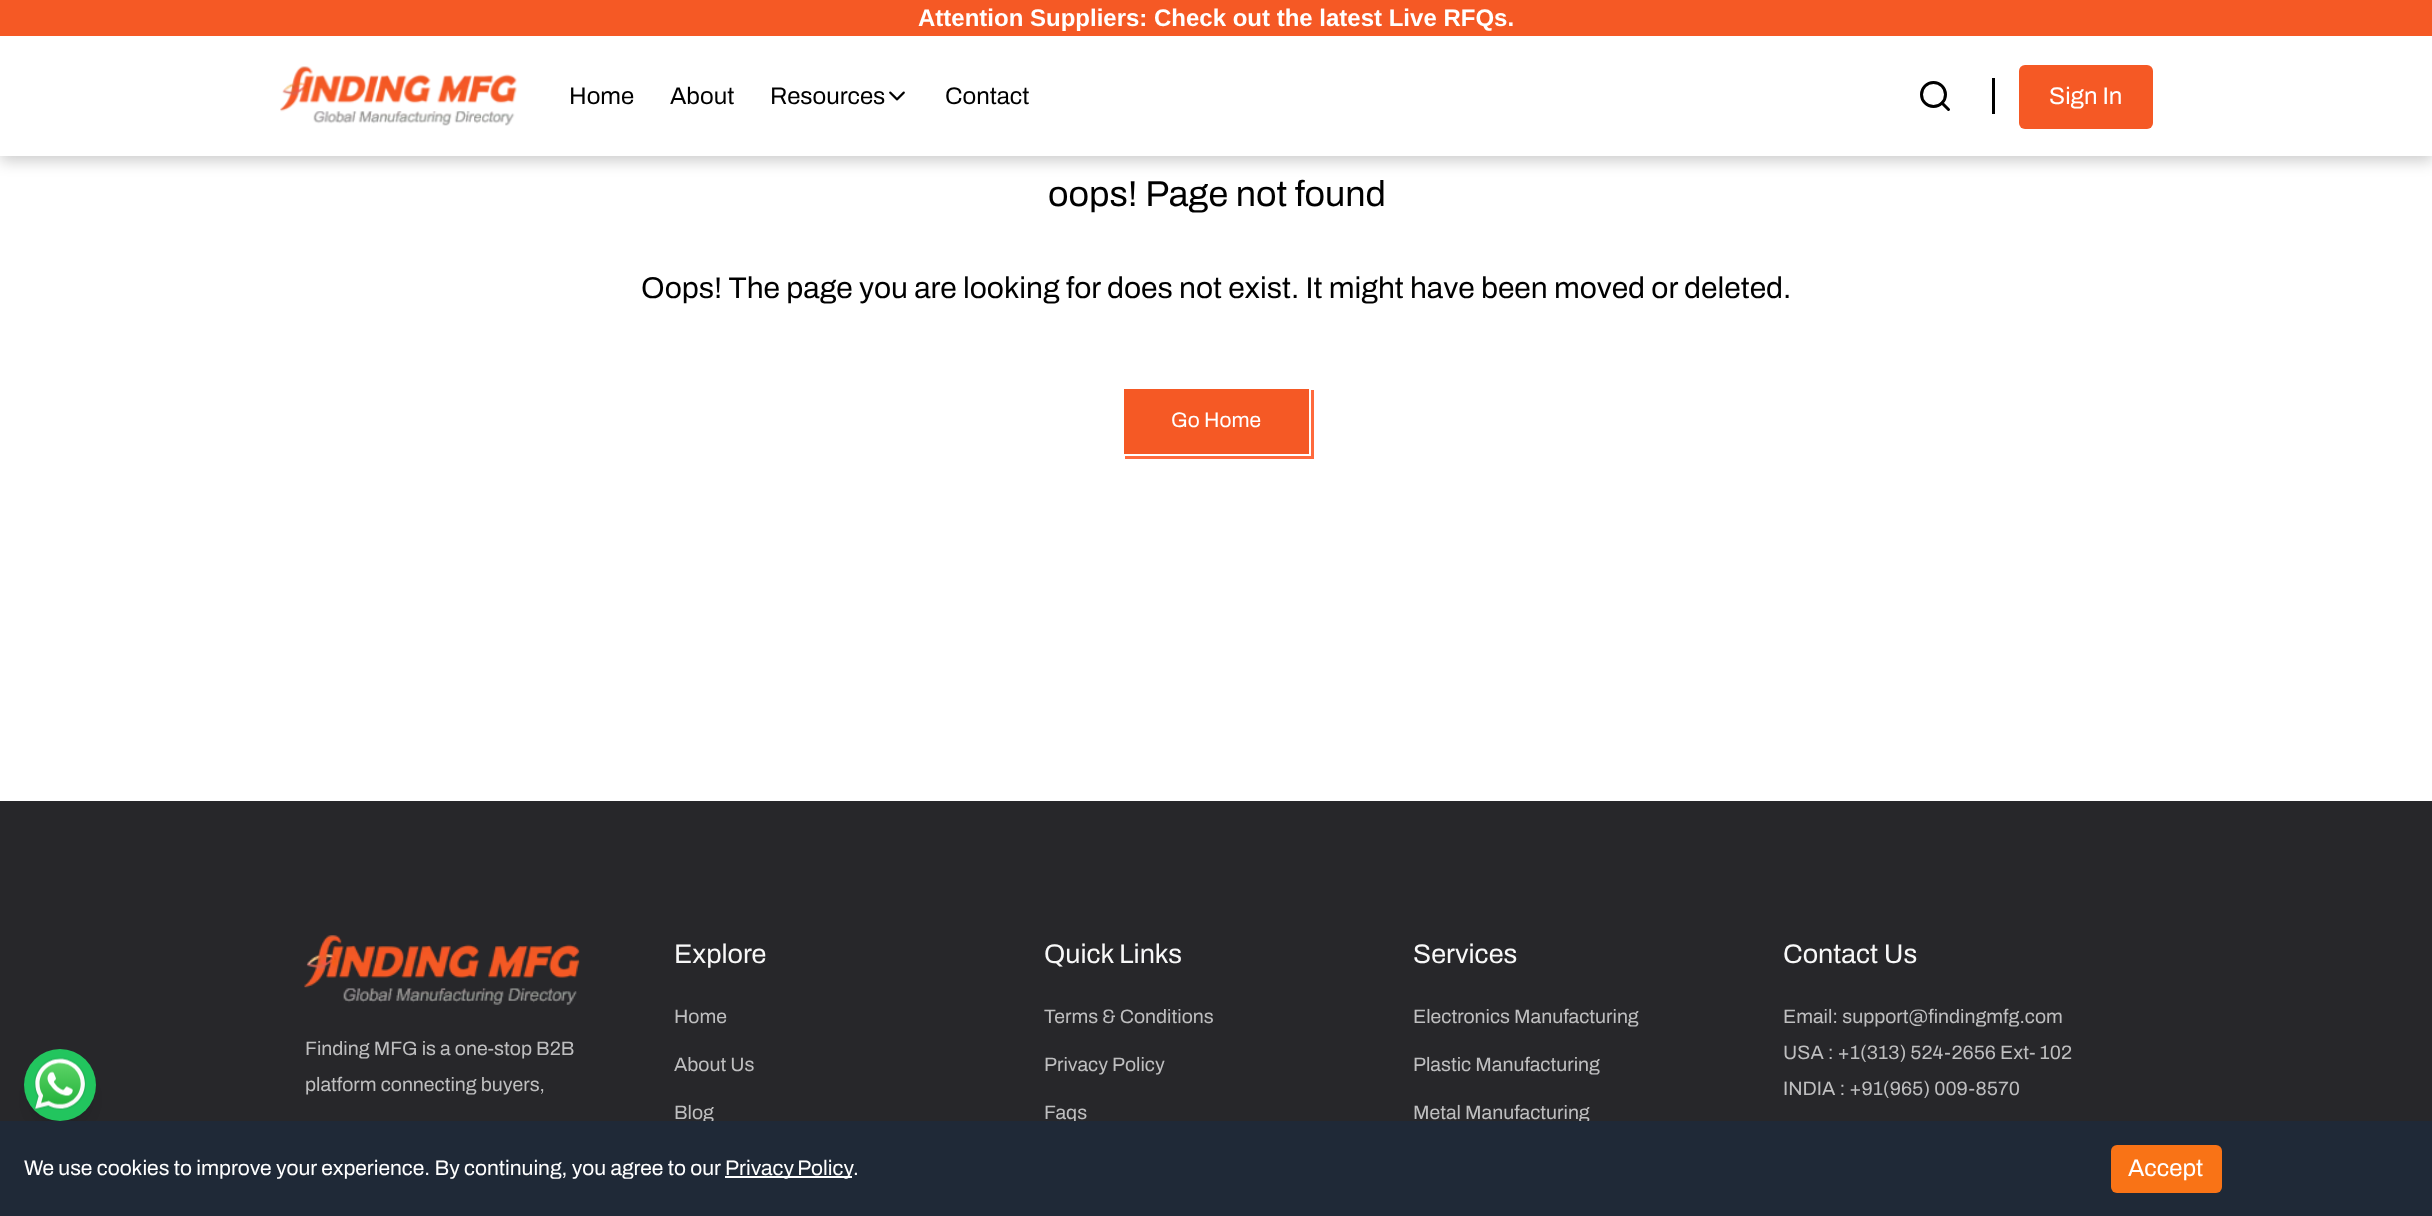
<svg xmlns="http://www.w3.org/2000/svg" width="2432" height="1216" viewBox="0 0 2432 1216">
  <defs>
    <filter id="blur1" x="-50%" y="-200%" width="200%" height="500%"><feGaussianBlur stdDeviation="7.5"/></filter>
    <filter id="blur2" x="-50%" y="-200%" width="200%" height="500%"><feGaussianBlur stdDeviation="4.5"/></filter>
    <filter id="blur3" x="-50%" y="-200%" width="200%" height="500%"><feGaussianBlur stdDeviation="11"/></filter>
  </defs>
  <rect width="100%" height="100%" fill="#ffffff"/>
  <rect x="0" y="5" width="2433" height="156" fill="#000000" fill-opacity="0.2" filter="url(#blur1)"/>
  <rect x="0" y="36" width="2432" height="120" fill="#ffffff"/>
  <rect x="0" y="0" width="2432" height="36" fill="#f55925"/>
  <text x="918" y="26" font-family="Liberation Sans" font-size="24" font-weight="bold" fill="#ffffff">Attention Suppliers: Check out the latest Live RFQs.</text>
  <image x="280" y="66" width="237" height="60" href="img1.png"/>
  <text x="569" y="104" font-family="Archivo" font-size="24" font-weight="600" fill="#000000">Home</text>
  <text x="670" y="104" font-family="Archivo" font-size="24" font-weight="600" fill="#000000">About</text>
  <text x="770" y="104" font-family="Archivo" font-size="24" font-weight="600" fill="#000000">Resources</text>
  <image x="889" y="91" width="16" height="10" href="img2.png"/>
  <text x="945" y="104" font-family="Archivo" font-size="24" font-weight="600" fill="#000000">Contact</text>
  <circle cx="1933.5" cy="94.5" r="12" fill="none" stroke="#000000" stroke-width="3"/>
  <path d="M1948.5 109.5L1942 103" fill="none" stroke="#000000" stroke-width="3" stroke-linecap="round" stroke-linejoin="round"/>
  <rect x="1992" y="78" width="3" height="36" fill="#000000"/>
  <rect x="2019" y="65" width="134" height="64" rx="6" fill="#f55925"/>
  <text x="2049" y="104" font-family="Archivo" font-size="24" font-weight="600" fill="#ffffff">Sign In</text>
  <text x="1048" y="206" font-family="Archivo" font-size="36" font-weight="600" fill="#000000">oops! Page not found</text>
  <text x="641" y="298" font-family="Archivo" font-size="30" font-weight="600" fill="#000000">Oops! The page you are looking for does not exist. It might have been moved or deleted.</text>
  <rect x="1125" y="390" width="189" height="69" fill="#ff6a3d"/>
  <rect x="1123" y="388" width="187" height="67" fill="#f55925" stroke="#ffffff" stroke-width="2"/>
  <text x="1171" y="427" font-family="Archivo" font-size="21" font-weight="600" fill="#ffffff">Go Home</text>
  <rect x="0" y="801" width="2432" height="320" fill="#27272a"/>
  <rect x="30" y="1061" width="60" height="60" rx="30" fill="#000000" fill-opacity="0.1" filter="url(#blur2)"/>
  <rect x="29" y="1068" width="63" height="63" rx="31.5" fill="#000000" fill-opacity="0.1" filter="url(#blur3)"/>
  <circle cx="60" cy="1085" r="36" fill="#22c55e"/>
  <image x="34" y="1057" width="52" height="53" href="img3.png"/>
  <image x="304" y="935" width="276" height="70" href="img4.png"/>
  <text x="305" y="1055" font-family="Archivo" font-size="19.5" font-weight="600" fill="#bebebf">Finding MFG is a one-stop B2B</text>
  <text x="305" y="1091" font-family="Archivo" font-size="19.5" font-weight="600" fill="#bebebf">platform connecting buyers,</text>
  <text x="674" y="963" font-family="Archivo" font-size="27" font-weight="600" fill="#f8f8f8">Explore</text>
  <text x="674" y="1023" font-family="Archivo" font-size="19.5" font-weight="600" fill="#bebebf">Home</text>
  <text x="674" y="1071" font-family="Archivo" font-size="19.5" font-weight="600" fill="#bebebf">About Us</text>
  <text x="674" y="1119" font-family="Archivo" font-size="19.5" font-weight="600" fill="#bebebf">Blog</text>
  <text x="1044" y="963" font-family="Archivo" font-size="27" font-weight="600" fill="#f8f8f8">Quick Links</text>
  <text x="1044" y="1023" font-family="Archivo" font-size="19.5" font-weight="600" fill="#bebebf">Terms &amp; Conditions</text>
  <text x="1044" y="1071" font-family="Archivo" font-size="19.5" font-weight="600" fill="#bebebf">Privacy Policy</text>
  <text x="1044" y="1119" font-family="Archivo" font-size="19.5" font-weight="600" fill="#bebebf">Faqs</text>
  <text x="1413" y="963" font-family="Archivo" font-size="27" font-weight="600" fill="#f8f8f8">Services</text>
  <text x="1413" y="1023" font-family="Archivo" font-size="19.5" font-weight="600" fill="#bebebf">Electronics Manufacturing</text>
  <text x="1413" y="1071" font-family="Archivo" font-size="19.5" font-weight="600" fill="#bebebf">Plastic Manufacturing</text>
  <text x="1413" y="1119" font-family="Archivo" font-size="19.5" font-weight="600" fill="#bebebf">Metal Manufacturing</text>
  <text x="1783" y="963" font-family="Archivo" font-size="27" font-weight="600" fill="#f8f8f8">Contact Us</text>
  <text x="1783" y="1023" font-family="Archivo" font-size="19.5" font-weight="600" fill="#bebebf">Email: support@findingmfg.com</text>
  <text x="1783" y="1059" font-family="Archivo" font-size="19.5" font-weight="600" fill="#bebebf">USA : +1(313) 524-2656 Ext- 102</text>
  <text x="1783" y="1095" font-family="Archivo" font-size="19.5" font-weight="600" fill="#bebebf">INDIA : +91(965) 009-8570</text>
  <rect x="0" y="1121" width="2432" height="95" fill="#1f2937"/>
  <text x="24" y="1175" font-family="Archivo" font-size="21" font-weight="600" fill="#ffffff">We use cookies to improve your experience. By continuing, you agree to our</text>
  <rect x="725" y="1176" width="127" height="2" fill="#ffffff"/>
  <text x="725" y="1175" word-spacing="-1" font-family="Archivo" font-size="21" font-weight="600" fill="#ffffff">Privacy Policy</text>
  <text x="853" y="1175" font-family="Archivo" font-size="21" font-weight="600" fill="#ffffff">.</text>
  <rect x="2111" y="1145" width="111" height="48" rx="6" fill="#f97316"/>
  <text x="2128" y="1176" font-family="Archivo" font-size="24" font-weight="600" fill="#ffffff">Accept</text>
</svg>
